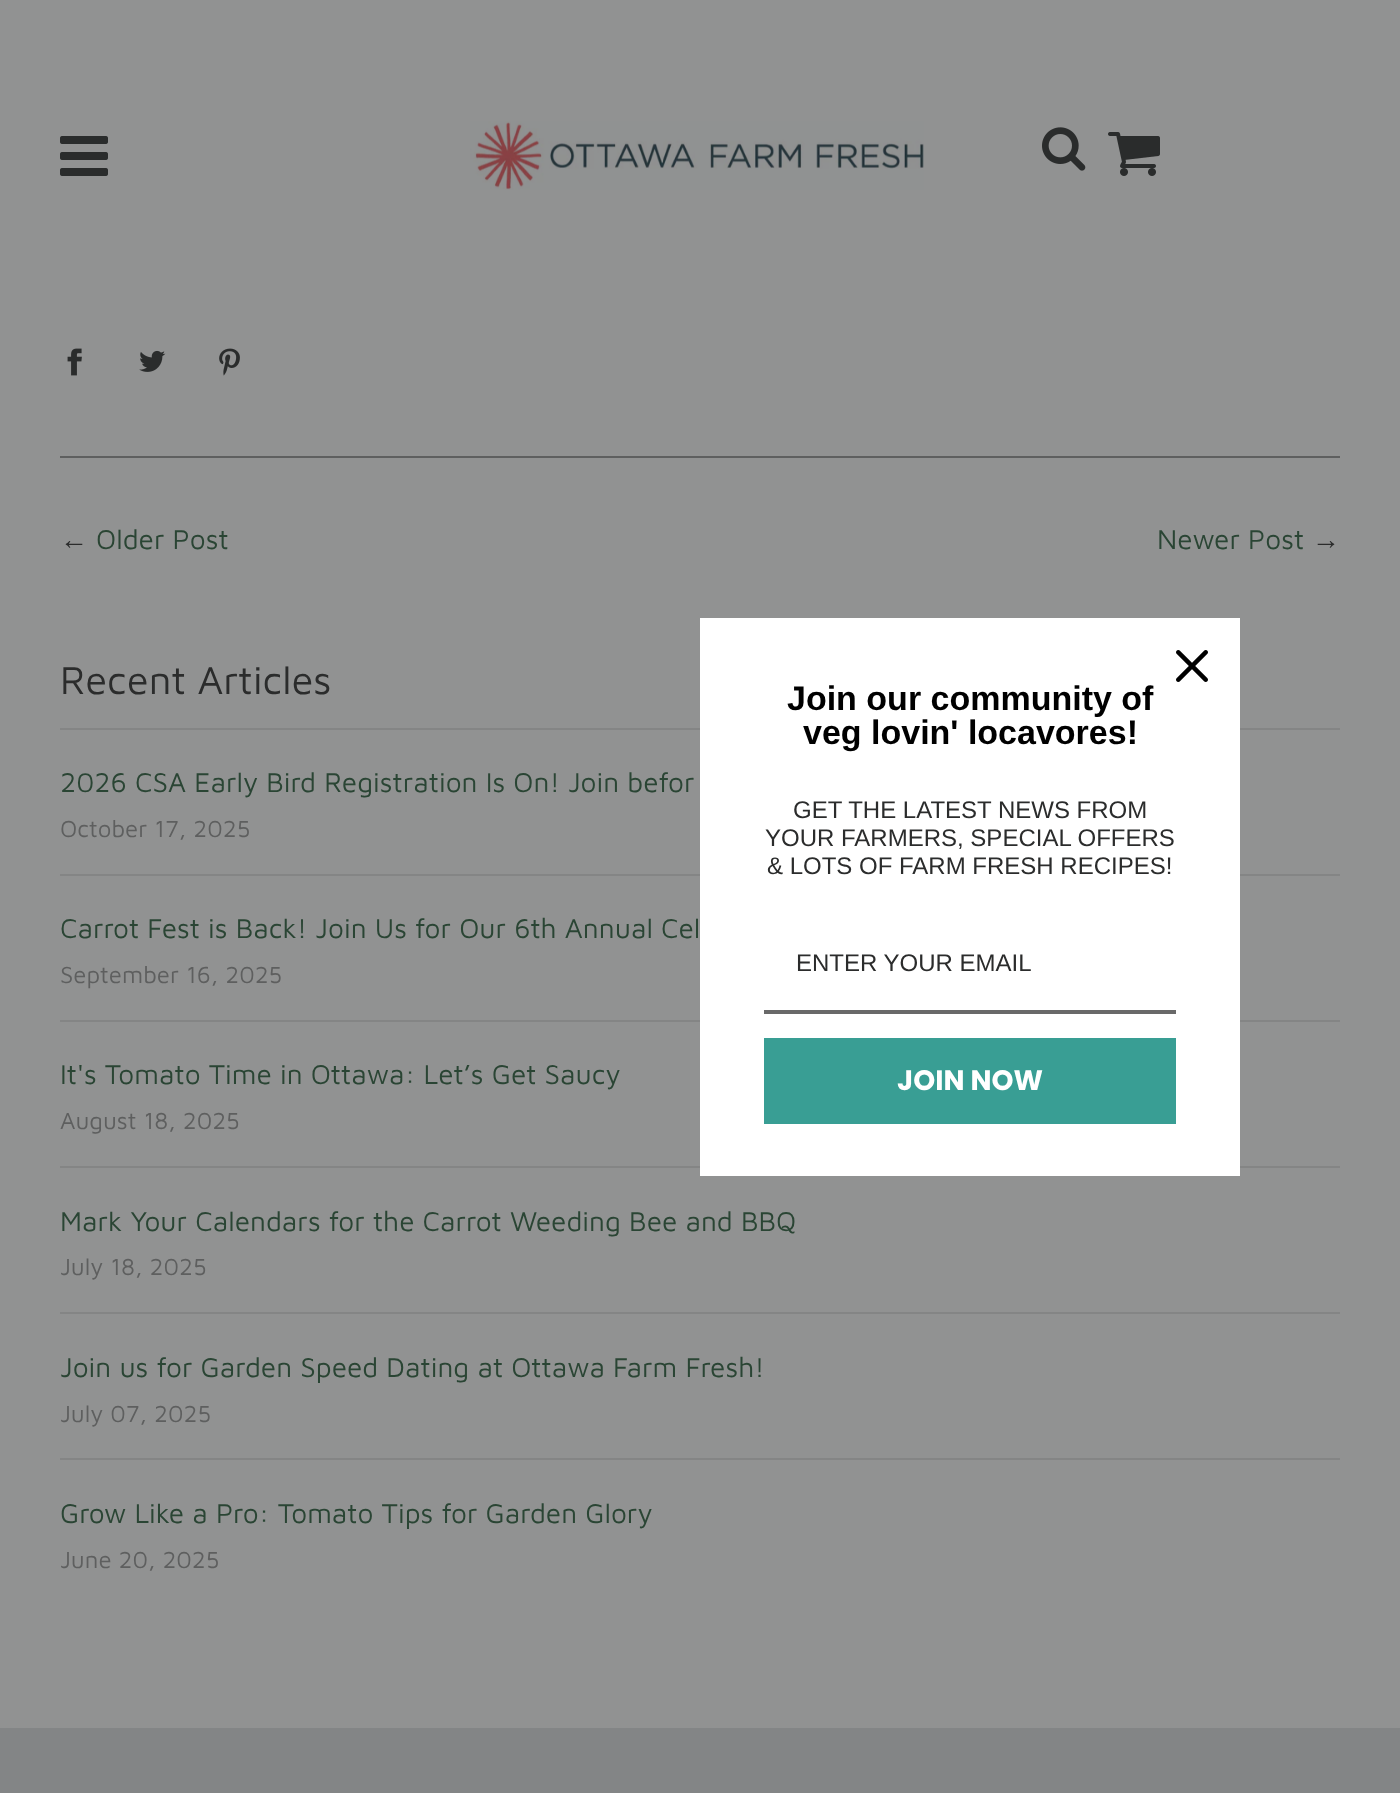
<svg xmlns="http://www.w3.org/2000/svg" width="1400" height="1793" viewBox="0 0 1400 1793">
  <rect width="100%" height="100%" fill="#919292"/>
  <image x="60" y="136" width="48" height="40" href="img1.png"/>
  <image x="470" y="121" width="454" height="69" href="img2.png"/>
  <image x="1042" y="127" width="44" height="44" href="img3.png"/>
  <image x="1108" y="132" width="52" height="44" href="img4.png"/>
  <image x="67" y="348" width="15" height="28" href="img5.png"/>
  <image x="139" y="350" width="27" height="22" href="img6.png"/>
  <image x="219" y="348" width="21" height="28" href="img7.png"/>
  <rect x="60" y="456" width="1280" height="2" fill="#5e5f5f"/>
  <text x="60" y="549" font-family="Liberation Sans" font-size="28" fill="#2b2c2c">←</text>
  <text x="96" y="549" font-family="Maven Pro" font-size="28" fill="#2a4534">Older Post</text>
  <text x="1157" y="549" font-family="Maven Pro" font-size="28" fill="#2a4534">Newer Post</text>
  <text x="1312" y="549" font-family="Liberation Sans" font-size="28" fill="#2b2c2c">→</text>
  <text x="60" y="694" font-family="Maven Pro" font-size="40" fill="#2b2c2c">Recent Articles</text>
  <rect x="60" y="728" width="1280" height="2" fill="#848585"/>
  <text x="60" y="792" font-family="Maven Pro" font-size="28" fill="#2a4534">2026 CSA Early Bird Registration Is On! Join befor</text>
  <text x="60" y="837" font-family="Maven Pro" font-size="24" fill="#5e5f5f">October 17, 2025</text>
  <rect x="60" y="874" width="1280" height="2" fill="#848585"/>
  <text x="60" y="938" font-family="Maven Pro" font-size="28" fill="#2a4534">Carrot Fest is Back! Join Us for Our 6th Annual Cel</text>
  <text x="60" y="983" font-family="Maven Pro" font-size="24" fill="#5e5f5f">September 16, 2025</text>
  <rect x="60" y="1020" width="1280" height="2" fill="#848585"/>
  <text x="60" y="1084" font-family="Maven Pro" font-size="28" fill="#2a4534">It's Tomato Time in Ottawa: Let’s Get Saucy</text>
  <text x="60" y="1129" font-family="Maven Pro" font-size="24" fill="#5e5f5f">August 18, 2025</text>
  <rect x="60" y="1166" width="1280" height="2" fill="#848585"/>
  <text x="60" y="1231" font-family="Maven Pro" font-size="28" fill="#2a4534">Mark Your Calendars for the Carrot Weeding Bee and BBQ</text>
  <text x="60" y="1275" font-family="Maven Pro" font-size="24" fill="#5e5f5f">July 18, 2025</text>
  <rect x="60" y="1312" width="1280" height="2" fill="#848585"/>
  <text x="60" y="1377" font-family="Maven Pro" font-size="28" fill="#2a4534">Join us for Garden Speed Dating at Ottawa Farm Fresh!</text>
  <text x="60" y="1422" font-family="Maven Pro" font-size="24" fill="#5e5f5f">July 07, 2025</text>
  <rect x="60" y="1458" width="1280" height="2" fill="#848585"/>
  <text x="60" y="1523" font-family="Maven Pro" font-size="28" fill="#2a4534">Grow Like a Pro: Tomato Tips for Garden Glory</text>
  <text x="60" y="1568" font-family="Maven Pro" font-size="24" fill="#5e5f5f">June 20, 2025</text>
  <rect x="0" y="1728" width="1400" height="65" fill="#838586"/>
  <rect x="700" y="618" width="540" height="558" fill="#ffffff"/>
  <image x="1176" y="650" width="32" height="32" href="img8.png"/>
  <text x="787" y="710" font-family="Liberation Sans" font-size="34" font-weight="bold" fill="#000000">Join our community of</text>
  <text x="803" y="744" font-family="Liberation Sans" font-size="34" font-weight="bold" fill="#000000">veg lovin' locavores!</text>
  <text x="793" y="818" font-family="Liberation Sans" font-size="24" fill="#2b2c2c">GET THE LATEST NEWS FROM</text>
  <text x="765" y="846" font-family="Liberation Sans" font-size="24" fill="#2b2c2c">YOUR FARMERS, SPECIAL OFFERS</text>
  <text x="767" y="874" font-family="Liberation Sans" font-size="24" fill="#2b2c2c">&amp; LOTS OF FARM FRESH RECIPES!</text>
  <rect x="764" y="1010" width="412" height="4" fill="#696969"/>
  <text x="796" y="971" font-family="Liberation Sans" font-size="24" fill="#2b2c2c">ENTER YOUR EMAIL</text>
  <rect x="764" y="1038" width="412" height="86" fill="#399e94"/>
  <text x="897" y="1090" font-family="Poppins" font-size="28" font-weight="bold" fill="#ffffff">JOIN NOW</text>
</svg>
